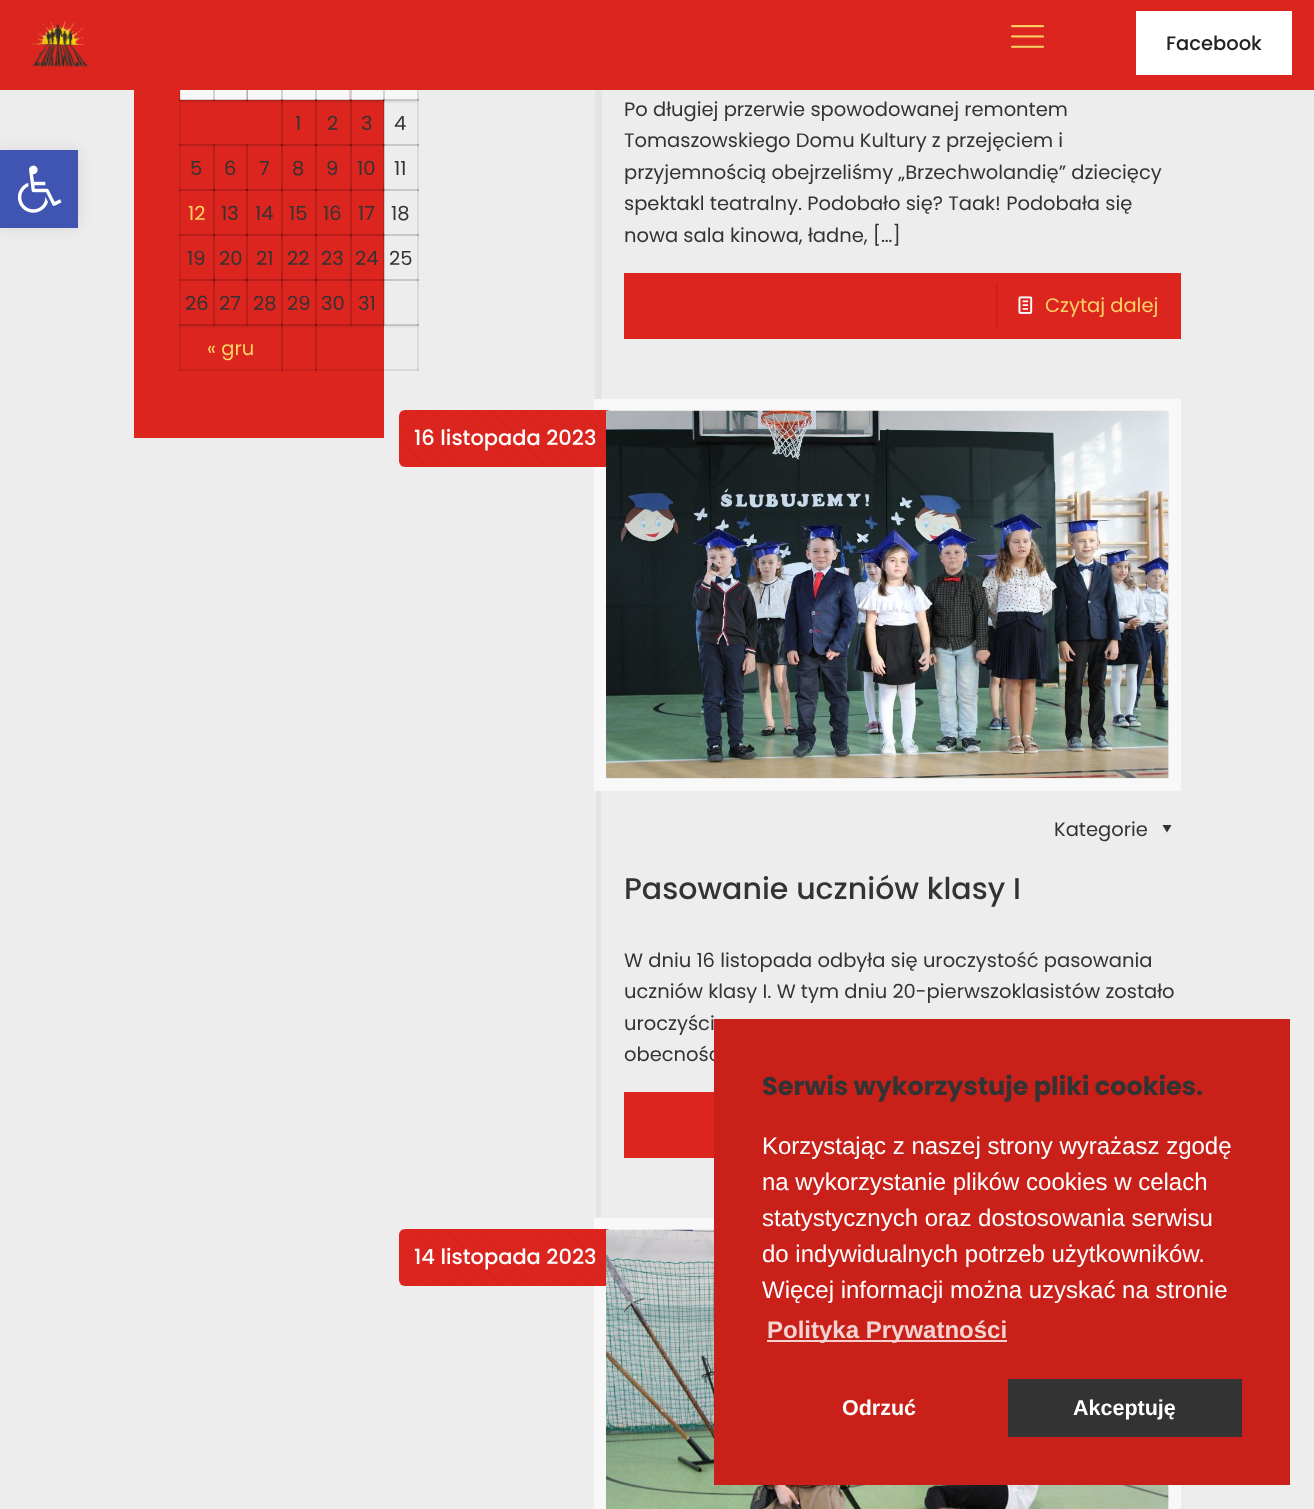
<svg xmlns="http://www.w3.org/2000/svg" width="1314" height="1509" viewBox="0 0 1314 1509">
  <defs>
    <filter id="blur1" x="-50%" y="-200%" width="200%" height="500%"><feGaussianBlur stdDeviation="7.5"/></filter>
  </defs>
  <rect width="100%" height="100%" fill="#ededed"/>
  <rect x="384" y="369" width="35" height="2" fill="#dadada"/>
  <rect x="417" y="324" width="2" height="47" fill="#dadada"/>
  <rect x="417" y="369" width="2" height="2" fill="#c9c9c9"/>
  <rect x="417" y="144" width="2" height="137" fill="#dadada"/>
  <rect x="383" y="144" width="36" height="2" fill="#dadada"/>
  <rect x="383" y="144" width="2" height="2" fill="#b9b9b9"/>
  <rect x="417" y="144" width="2" height="2" fill="#c9c9c9"/>
  <rect x="384" y="189" width="1" height="47" fill="#c9c9c9"/>
  <rect x="417" y="189" width="2" height="2" fill="#aaaaaa"/>
  <rect x="383" y="234" width="36" height="2" fill="#c9c9c9"/>
  <rect x="383" y="234" width="2" height="2" fill="#909090"/>
  <rect x="417" y="234" width="2" height="2" fill="#aaaaaa"/>
  <rect x="384" y="279" width="1" height="47" fill="#c9c9c9"/>
  <rect x="383" y="324" width="36" height="1" fill="#c9c9c9"/>
  <rect x="383" y="324" width="2" height="1" fill="#aaaaaa"/>
  <rect x="417" y="279" width="2" height="47" fill="#dadada"/>
  <rect x="417" y="324" width="2" height="2" fill="#aaaaaa"/>
  <rect x="417" y="279" width="2" height="2" fill="#aaaaaa"/>
  <rect x="384" y="326" width="33" height="2" fill="#e4e4e4"/>
  <rect x="383" y="325" width="34" height="1" fill="#c1c1c1"/>
  <rect x="383" y="325" width="2" height="1" fill="#a4a4a4"/>
  <rect x="0" y="0" width="1314" height="90" fill="#db251e"/>
  <image x="32" y="21" width="56" height="46" href="img1.png"/>
  <image x="1011" y="25" width="33" height="23" href="img2.png"/>
  <rect x="1136" y="11" width="156" height="64" fill="#ffffff"/>
  <text x="1166" y="50" font-family="Poppins" font-size="19.5" font-weight="500" fill="#252321">Facebook</text>
  <rect x="0" y="150" width="78" height="78" fill="#000000" fill-opacity="0.1" filter="url(#blur1)"/>
  <rect x="0" y="150" width="78" height="78" fill="#4054b2"/>
  <image x="17" y="165" width="45" height="48" href="img3.png"/>
  <rect x="134" y="90" width="250" height="348" fill="#db251e"/>
  <rect x="179" y="324" width="2" height="47" fill="#c9221c"/>
  <rect x="179" y="369" width="103" height="2" fill="#c9221c"/>
  <rect x="179" y="369" width="2" height="2" fill="#b91f1a"/>
  <rect x="281" y="324" width="2" height="47" fill="#b91f1a"/>
  <rect x="281" y="369" width="36" height="2" fill="#c9221c"/>
  <rect x="281" y="369" width="2" height="2" fill="#aa1d18"/>
  <rect x="281" y="369" width="1" height="2" fill="#9c1b16"/>
  <rect x="315" y="324" width="2" height="47" fill="#b91f1a"/>
  <rect x="315" y="369" width="69" height="2" fill="#c9221c"/>
  <rect x="315" y="369" width="2" height="2" fill="#9c1b16"/>
  <rect x="179" y="144" width="1" height="47" fill="#c9221c"/>
  <rect x="179" y="144" width="205" height="2" fill="#c9221c"/>
  <rect x="179" y="144" width="2" height="2" fill="#b91f1a"/>
  <rect x="213" y="144" width="2" height="2" fill="#9c1b16"/>
  <rect x="246" y="144" width="2" height="2" fill="#9c1b16"/>
  <rect x="281" y="144" width="2" height="2" fill="#aa1d18"/>
  <rect x="281" y="144" width="1" height="2" fill="#9c1b16"/>
  <rect x="315" y="144" width="2" height="2" fill="#9c1b16"/>
  <rect x="350" y="144" width="2" height="2" fill="#aa1d18"/>
  <rect x="350" y="144" width="1" height="2" fill="#9c1b16"/>
  <rect x="383" y="144" width="1" height="2" fill="#9c1b16"/>
  <rect x="179" y="189" width="2" height="47" fill="#c9221c"/>
  <rect x="179" y="189" width="2" height="2" fill="#9c1b16"/>
  <rect x="213" y="189" width="2" height="47" fill="#b91f1a"/>
  <rect x="246" y="189" width="2" height="47" fill="#b91f1a"/>
  <rect x="281" y="189" width="2" height="47" fill="#b91f1a"/>
  <rect x="315" y="189" width="2" height="47" fill="#b91f1a"/>
  <rect x="350" y="189" width="2" height="47" fill="#b91f1a"/>
  <rect x="383" y="189" width="1" height="47" fill="#b91f1a"/>
  <rect x="179" y="234" width="1" height="47" fill="#c9221c"/>
  <rect x="179" y="234" width="205" height="2" fill="#b91f1a"/>
  <rect x="179" y="234" width="2" height="2" fill="#9c1b16"/>
  <rect x="213" y="234" width="2" height="2" fill="#6f1310"/>
  <rect x="246" y="234" width="2" height="2" fill="#6f1310"/>
  <rect x="281" y="234" width="2" height="2" fill="#841712"/>
  <rect x="281" y="234" width="1" height="2" fill="#6f1310"/>
  <rect x="315" y="234" width="2" height="2" fill="#6f1310"/>
  <rect x="350" y="234" width="2" height="2" fill="#841712"/>
  <rect x="350" y="234" width="1" height="2" fill="#6f1310"/>
  <rect x="383" y="234" width="1" height="2" fill="#6f1310"/>
  <rect x="179" y="279" width="2" height="47" fill="#c9221c"/>
  <rect x="179" y="324" width="36" height="1" fill="#b91f1a"/>
  <rect x="179" y="324" width="2" height="2" fill="#9c1b16"/>
  <rect x="179" y="279" width="2" height="2" fill="#9c1b16"/>
  <rect x="213" y="279" width="2" height="47" fill="#b91f1a"/>
  <rect x="213" y="324" width="35" height="1" fill="#b91f1a"/>
  <rect x="213" y="324" width="2" height="1" fill="#901914"/>
  <rect x="246" y="279" width="2" height="47" fill="#b91f1a"/>
  <rect x="246" y="324" width="36" height="1" fill="#b91f1a"/>
  <rect x="246" y="324" width="2" height="1" fill="#901914"/>
  <rect x="281" y="279" width="2" height="47" fill="#b91f1a"/>
  <rect x="281" y="324" width="36" height="1" fill="#b91f1a"/>
  <rect x="281" y="324" width="2" height="1" fill="#841712"/>
  <rect x="281" y="324" width="1" height="2" fill="#6f1310"/>
  <rect x="315" y="279" width="2" height="47" fill="#b91f1a"/>
  <rect x="315" y="324" width="36" height="1" fill="#b91f1a"/>
  <rect x="315" y="324" width="2" height="1" fill="#6f1310"/>
  <rect x="350" y="279" width="2" height="47" fill="#b91f1a"/>
  <rect x="350" y="324" width="34" height="1" fill="#b91f1a"/>
  <rect x="350" y="324" width="2" height="1" fill="#9c1b16"/>
  <rect x="350" y="324" width="1" height="2" fill="#901914"/>
  <rect x="383" y="279" width="1" height="47" fill="#b91f1a"/>
  <rect x="383" y="324" width="1" height="2" fill="#901914"/>
  <rect x="349" y="100" width="35" height="3" fill="#d0231d"/>
  <rect x="315" y="326" width="69" height="2" fill="#d2241d"/>
  <rect x="315" y="325" width="2" height="3" fill="#b21e19"/>
  <rect x="315" y="325" width="69" height="1" fill="#b21e19"/>
  <rect x="315" y="325" width="2" height="1" fill="#6d120f"/>
  <rect x="350" y="325" width="2" height="1" fill="#971a15"/>
  <rect x="350" y="325" width="1" height="1" fill="#8b1813"/>
  <rect x="383" y="325" width="1" height="1" fill="#8b1813"/>
  <image x="180" y="90" width="33" height="10" href="img4.png"/>
  <image x="213" y="90" width="35" height="10" href="img5.png"/>
  <image x="247" y="90" width="35" height="10" href="img6.png"/>
  <image x="282" y="90" width="33" height="10" href="img4.png"/>
  <image x="315" y="90" width="35" height="10" href="img5.png"/>
  <image x="349" y="90" width="35" height="10" href="img6.png"/>
  <image x="384" y="90" width="33" height="10" href="img4.png"/>
  <rect x="384" y="100" width="33" height="3" fill="#e1e1e1"/>
  <rect x="383" y="99" width="36" height="2" fill="#000000" fill-opacity="0.08"/>
  <rect x="417" y="99" width="2" height="47" fill="#000000" fill-opacity="0.08"/>
  <rect x="417" y="90" width="2" height="11" fill="#000000" fill-opacity="0.08"/>
  <rect x="383" y="144" width="36" height="2" fill="#000000" fill-opacity="0.08"/>
  <rect x="383" y="99" width="2" height="47" fill="#000000" fill-opacity="0.08"/>
  <rect x="350" y="99" width="34" height="2" fill="#000000" fill-opacity="0.08"/>
  <rect x="383" y="99" width="2" height="47" fill="#000000" fill-opacity="0.08"/>
  <rect x="383" y="99" width="36" height="2" fill="#000000" fill-opacity="0.08"/>
  <rect x="383" y="90" width="2" height="11" fill="#000000" fill-opacity="0.08"/>
  <rect x="383" y="90" width="2" height="11" fill="#000000" fill-opacity="0.08"/>
  <rect x="180" y="100" width="170" height="3" fill="#d0231d"/>
  <rect x="349" y="100" width="1" height="3" fill="#c6211c"/>
  <rect x="350" y="144" width="34" height="2" fill="#000000" fill-opacity="0.08"/>
  <rect x="350" y="99" width="2" height="47" fill="#000000" fill-opacity="0.08"/>
  <rect x="315" y="99" width="36" height="2" fill="#000000" fill-opacity="0.08"/>
  <rect x="350" y="99" width="2" height="47" fill="#000000" fill-opacity="0.08"/>
  <rect x="350" y="99" width="34" height="2" fill="#000000" fill-opacity="0.08"/>
  <rect x="350" y="90" width="2" height="11" fill="#000000" fill-opacity="0.08"/>
  <rect x="350" y="90" width="2" height="11" fill="#000000" fill-opacity="0.08"/>
  <rect x="315" y="144" width="36" height="2" fill="#000000" fill-opacity="0.08"/>
  <rect x="315" y="99" width="2" height="47" fill="#000000" fill-opacity="0.08"/>
  <rect x="281" y="99" width="36" height="2" fill="#000000" fill-opacity="0.08"/>
  <rect x="315" y="99" width="2" height="47" fill="#000000" fill-opacity="0.08"/>
  <rect x="315" y="99" width="36" height="2" fill="#000000" fill-opacity="0.08"/>
  <rect x="315" y="90" width="2" height="11" fill="#000000" fill-opacity="0.08"/>
  <rect x="315" y="90" width="2" height="11" fill="#000000" fill-opacity="0.08"/>
  <rect x="281" y="144" width="36" height="2" fill="#000000" fill-opacity="0.08"/>
  <rect x="281" y="99" width="2" height="47" fill="#000000" fill-opacity="0.08"/>
  <rect x="179" y="99" width="103" height="2" fill="#000000" fill-opacity="0.08"/>
  <rect x="281" y="99" width="2" height="47" fill="#000000" fill-opacity="0.08"/>
  <rect x="281" y="99" width="36" height="2" fill="#000000" fill-opacity="0.08"/>
  <rect x="281" y="90" width="2" height="11" fill="#000000" fill-opacity="0.08"/>
  <rect x="281" y="90" width="2" height="11" fill="#000000" fill-opacity="0.08"/>
  <rect x="246" y="99" width="36" height="2" fill="#000000" fill-opacity="0.08"/>
  <rect x="246" y="90" width="2" height="11" fill="#000000" fill-opacity="0.08"/>
  <rect x="246" y="90" width="2" height="11" fill="#000000" fill-opacity="0.08"/>
  <rect x="213" y="99" width="35" height="2" fill="#000000" fill-opacity="0.08"/>
  <rect x="213" y="90" width="2" height="11" fill="#000000" fill-opacity="0.08"/>
  <rect x="213" y="90" width="2" height="11" fill="#000000" fill-opacity="0.08"/>
  <rect x="179" y="144" width="103" height="2" fill="#000000" fill-opacity="0.08"/>
  <rect x="179" y="99" width="2" height="47" fill="#000000" fill-opacity="0.08"/>
  <rect x="179" y="99" width="36" height="2" fill="#000000" fill-opacity="0.08"/>
  <rect x="179" y="90" width="2" height="11" fill="#000000" fill-opacity="0.08"/>
  <text x="295" y="130" font-family="Poppins" font-size="19.5" fill="#333333">1</text>
  <text x="327" y="130" font-family="Poppins" font-size="19.5" fill="#333333">2</text>
  <text x="361" y="130" font-family="Poppins" font-size="19.5" fill="#333333">3</text>
  <text x="394" y="130" font-family="Poppins" font-size="19.5" fill="#333333">4</text>
  <rect x="180" y="146" width="1" height="45" fill="#c8221c"/>
  <rect x="180" y="189" width="33" height="2" fill="#b81f1a"/>
  <rect x="180" y="189" width="1" height="2" fill="#9b1b16"/>
  <text x="190" y="175" font-family="Poppins" font-size="19.5" fill="#333333">5</text>
  <rect x="213" y="146" width="2" height="45" fill="#b81f1a"/>
  <rect x="246" y="146" width="2" height="45" fill="#b81f1a"/>
  <rect x="213" y="189" width="35" height="2" fill="#b81f1a"/>
  <rect x="213" y="189" width="2" height="2" fill="#6f1310"/>
  <rect x="246" y="189" width="2" height="2" fill="#6f1310"/>
  <text x="224" y="175" font-family="Poppins" font-size="19.5" fill="#333333">6</text>
  <rect x="281" y="146" width="2" height="45" fill="#b81f1a"/>
  <rect x="248" y="189" width="67" height="2" fill="#b81f1a"/>
  <rect x="281" y="189" width="1" height="2" fill="#6f1310"/>
  <text x="259" y="175" font-family="Poppins" font-size="19.5" fill="#333333">7</text>
  <rect x="282" y="189" width="1" height="2" fill="#841712"/>
  <text x="292" y="175" font-family="Poppins" font-size="19.5" fill="#333333">8</text>
  <rect x="315" y="146" width="2" height="45" fill="#b81f1a"/>
  <rect x="315" y="189" width="35" height="2" fill="#b81f1a"/>
  <rect x="315" y="189" width="2" height="2" fill="#6f1310"/>
  <text x="326" y="175" font-family="Poppins" font-size="19.5" fill="#333333">9</text>
  <rect x="350" y="146" width="2" height="45" fill="#b81f1a"/>
  <rect x="383" y="146" width="1" height="45" fill="#b81f1a"/>
  <rect x="350" y="189" width="34" height="2" fill="#b81f1a"/>
  <rect x="350" y="189" width="2" height="2" fill="#841712"/>
  <rect x="350" y="189" width="1" height="2" fill="#6f1310"/>
  <rect x="383" y="189" width="1" height="2" fill="#6f1310"/>
  <text x="357" y="175" font-family="Poppins" font-size="19.5" fill="#333333">10</text>
  <rect x="384" y="146" width="1" height="45" fill="#c7c7c7"/>
  <rect x="384" y="189" width="33" height="2" fill="#c7c7c7"/>
  <rect x="384" y="189" width="1" height="2" fill="#8f8f8f"/>
  <text x="394" y="175" font-family="Poppins" font-size="19.5" fill="#333333">11</text>
  <text x="188" y="220" font-family="Poppins" font-size="19.5" fill="#ffd266">12</text>
  <text x="221" y="220" font-family="Poppins" font-size="19.5" fill="#333333">13</text>
  <text x="255" y="220" font-family="Poppins" font-size="19.5" fill="#333333">14</text>
  <text x="289" y="220" font-family="Poppins" font-size="19.5" fill="#333333">15</text>
  <text x="323" y="220" font-family="Poppins" font-size="19.5" fill="#333333">16</text>
  <text x="358" y="220" font-family="Poppins" font-size="19.5" fill="#333333">17</text>
  <text x="391" y="220" font-family="Poppins" font-size="19.5" fill="#333333">18</text>
  <rect x="180" y="236" width="1" height="45" fill="#c8221c"/>
  <rect x="180" y="279" width="33" height="2" fill="#b81f1a"/>
  <rect x="180" y="279" width="1" height="2" fill="#9b1b16"/>
  <text x="187" y="265" font-family="Poppins" font-size="19.5" fill="#333333">19</text>
  <rect x="213" y="236" width="2" height="45" fill="#b81f1a"/>
  <rect x="246" y="236" width="2" height="45" fill="#b81f1a"/>
  <rect x="213" y="279" width="35" height="2" fill="#b81f1a"/>
  <rect x="213" y="279" width="2" height="2" fill="#6f1310"/>
  <rect x="246" y="279" width="2" height="2" fill="#6f1310"/>
  <text x="219" y="265" font-family="Poppins" font-size="19.5" fill="#333333">20</text>
  <rect x="281" y="236" width="2" height="45" fill="#b81f1a"/>
  <rect x="248" y="279" width="67" height="2" fill="#b81f1a"/>
  <rect x="281" y="279" width="1" height="2" fill="#6f1310"/>
  <text x="256" y="265" font-family="Poppins" font-size="19.5" fill="#333333">21</text>
  <rect x="282" y="279" width="1" height="2" fill="#841712"/>
  <text x="287" y="265" font-family="Poppins" font-size="19.5" fill="#333333">22</text>
  <rect x="315" y="236" width="2" height="45" fill="#b81f1a"/>
  <rect x="315" y="279" width="35" height="2" fill="#b81f1a"/>
  <rect x="315" y="279" width="2" height="2" fill="#6f1310"/>
  <text x="321" y="265" font-family="Poppins" font-size="19.5" fill="#333333">23</text>
  <rect x="350" y="236" width="2" height="45" fill="#b81f1a"/>
  <rect x="383" y="236" width="1" height="45" fill="#b81f1a"/>
  <rect x="350" y="279" width="34" height="2" fill="#b81f1a"/>
  <rect x="350" y="279" width="2" height="2" fill="#841712"/>
  <rect x="350" y="279" width="1" height="2" fill="#6f1310"/>
  <rect x="383" y="279" width="1" height="2" fill="#6f1310"/>
  <text x="355" y="265" font-family="Poppins" font-size="19.5" fill="#333333">24</text>
  <rect x="384" y="236" width="1" height="45" fill="#c7c7c7"/>
  <rect x="384" y="279" width="33" height="2" fill="#c7c7c7"/>
  <rect x="384" y="279" width="1" height="2" fill="#8f8f8f"/>
  <text x="389" y="265" font-family="Poppins" font-size="19.5" fill="#333333">25</text>
  <text x="185" y="310" font-family="Poppins" font-size="19.5" fill="#333333">26</text>
  <text x="219" y="310" font-family="Poppins" font-size="19.5" fill="#333333">27</text>
  <text x="253" y="310" font-family="Poppins" font-size="19.5" fill="#333333">28</text>
  <text x="287" y="310" font-family="Poppins" font-size="19.5" fill="#333333">29</text>
  <text x="321" y="310" font-family="Poppins" font-size="19.5" fill="#333333">30</text>
  <text x="358" y="310" font-family="Poppins" font-size="19.5" fill="#333333">31</text>
  <rect x="180" y="326" width="135" height="2" fill="#d2241d"/>
  <rect x="281" y="325" width="2" height="3" fill="#b21e19"/>
  <rect x="180" y="325" width="1" height="3" fill="#c1211b"/>
  <rect x="180" y="325" width="135" height="1" fill="#b21e19"/>
  <rect x="282" y="325" width="1" height="1" fill="#801611"/>
  <rect x="180" y="325" width="1" height="1" fill="#971a15"/>
  <rect x="213" y="325" width="2" height="1" fill="#8b1813"/>
  <rect x="246" y="325" width="2" height="1" fill="#8b1813"/>
  <rect x="281" y="325" width="1" height="1" fill="#6d120f"/>
  <text x="207" y="355" font-family="Poppins" font-size="19.5" fill="#ffd266">« gru</text>
  <rect x="595" y="90" width="7" height="309" fill="#e4e4e4"/>
  <text x="624" y="116" font-family="Poppins" font-size="19.5" fill="#333333">Po długiej przerwie spowodowanej remontem</text>
  <text x="624" y="147" font-family="Poppins" font-size="19.5" fill="#333333">Tomaszowskiego Domu Kultury z przejęciem i</text>
  <text x="624" y="179" font-family="Poppins" font-size="19.5" fill="#333333">przyjemnością obejrzeliśmy „Brzechwolandię” dziecięcy</text>
  <text x="624" y="210" font-family="Poppins" font-size="19.5" fill="#333333">spektakl teatralny. Podobało się? Taak! Podobała się</text>
  <text x="624" y="242" font-family="Poppins" font-size="19.5" fill="#333333">nowa sala kinowa, ładne, […]</text>
  <rect x="624" y="273" width="557" height="66" fill="#db251e"/>
  <rect x="996" y="284" width="2" height="45" fill="#c9221c"/>
  <image x="1018" y="296" width="15" height="18" href="img7.png"/>
  <text x="1045" y="312" font-family="Poppins" font-size="19.5" fill="#ffd266">Czytaj dalej</text>
  <image x="596" y="791" width="5" height="426" href="img8.png"/>
  <rect x="600" y="405" width="575" height="380" fill="none" stroke="#f8f8f8" stroke-width="12"/>
  <rect x="399" y="410" width="213" height="57" rx="6" fill="#db251e"/>
  <image x="401" y="411" width="205" height="55" href="img9.png"/>
  <text x="414" y="445" font-family="Poppins" font-size="21" font-weight="500" fill="#ffffff">16 listopada 2023</text>
  <image x="606" y="410" width="563" height="368" href="img10.png"/>
  <text x="1054" y="836" font-family="Poppins" font-size="19.5" fill="#333333">Kategorie</text>
  <path d="M1171.5 825L1167 832.5L1162.5 825Z" fill="#333333"/>
  <text x="624" y="899" font-family="Poppins" font-size="30" font-weight="500" fill="#333333">Pasowanie uczniów klasy I</text>
  <text x="624" y="967" font-family="Poppins" font-size="19.5" fill="#333333">W dniu 16 listopada odbyła się uroczystość pasowania</text>
  <text x="624" y="998" font-family="Poppins" font-size="19.5" fill="#333333">uczniów klasy I. W tym dniu 20-pierwszoklasistów zostało</text>
  <text x="624" y="1030" font-family="Poppins" font-size="19.5" fill="#333333">uroczyści</text>
  <text x="624" y="1061" font-family="Poppins" font-size="19.5" fill="#333333">obecnośc</text>
  <rect x="624" y="1092" width="90" height="66" fill="#db251e"/>
  <rect x="600" y="1224" width="575" height="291" fill="none" stroke="#f8f8f8" stroke-width="12"/>
  <rect x="399" y="1229" width="213" height="57" rx="6" fill="#db251e"/>
  <image x="401" y="1230" width="205" height="55" href="img9.png"/>
  <text x="414" y="1264" font-family="Poppins" font-size="21" font-weight="500" fill="#ffffff">14 listopada 2023</text>
  <image x="606" y="1229" width="563" height="280" href="img11.png"/>
  <rect x="714" y="1019" width="576" height="466" fill="#c9211a"/>
  <text x="762" y="1095" font-family="Poppins" font-size="25.5" font-weight="bold" fill="#333333">Serwis wykorzystuje pliki cookies.</text>
  <text x="762" y="1154" font-family="Liberation Sans" font-size="24" fill="#ffffff">Korzystając z naszej strony wyrażasz zgodę</text>
  <text x="762" y="1190" font-family="Liberation Sans" font-size="24" fill="#ffffff">na wykorzystanie plików cookies w celach</text>
  <text x="762" y="1226" font-family="Liberation Sans" font-size="24" fill="#ffffff">statystycznych oraz dostosowania serwisu</text>
  <text x="762" y="1262" font-family="Liberation Sans" font-size="24" fill="#ffffff">do indywidualnych potrzeb użytkowników.</text>
  <text x="762" y="1298" font-family="Liberation Sans" font-size="24" fill="#ffffff">Więcej informacji można uzyskać na stronie</text>
  <rect x="767" y="1340" width="240" height="2" fill="#f4d3d1"/>
  <text x="767" y="1338" font-family="Liberation Sans" font-size="24" font-weight="bold" fill="#f4d3d1">Polityka Prywatności</text>
  <text x="842" y="1415" font-family="Liberation Sans" font-size="21.5" font-weight="bold" fill="#ffffff">Odrzuć</text>
  <rect x="1008" y="1379" width="234" height="58" fill="#333333"/>
  <text x="1073" y="1415" font-family="Liberation Sans" font-size="21.5" font-weight="bold" fill="#ffffff">Akceptuję</text>
</svg>
